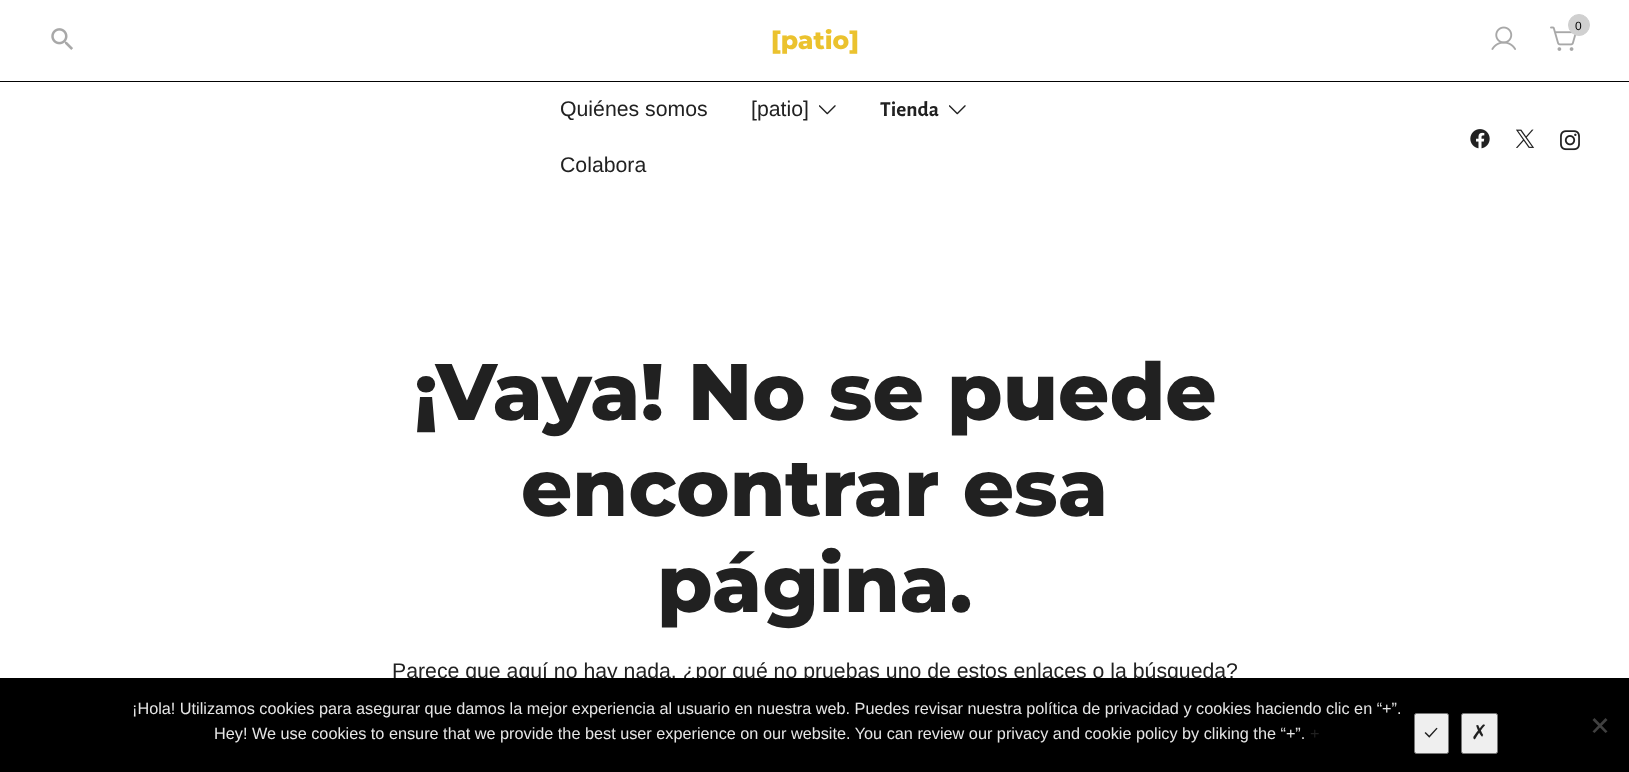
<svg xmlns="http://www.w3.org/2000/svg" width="1629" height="772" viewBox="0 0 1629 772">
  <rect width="100%" height="100%" fill="#ffffff"/>
  <rect x="0" y="81" width="1629" height="1" fill="#030303"/>
  <image x="1491" y="26" width="25" height="24" href="img1.png"/>
  <image x="1550" y="26" width="27" height="25" href="img2.png"/>
  <circle cx="1579" cy="25" r="10.5" fill="#d0d0d0" stroke="#d0d0d0"/>
  <text x="1575" y="30" font-family="Liberation Sans" font-size="12" fill="#000000">0</text>
  <image x="51" y="28" width="22" height="22" href="img3.png"/>
  <text x="771" y="49" font-family="Montserrat" font-size="25" font-weight="100" fill="#ebc22e">[patio]</text>
  <text x="560" y="116" font-family="Liberation Sans" font-size="21.25" fill="#212121">Quiénes somos</text>
  <text x="751" y="116" font-family="Liberation Sans" font-size="21.25" fill="#212121">[patio]</text>
  <image x="819" y="105" width="17" height="10" href="img4.png"/>
  <text x="880" y="116" font-family="Alegreya Sans" font-size="21.25" font-weight="bold" fill="#212121">Tienda</text>
  <image x="949" y="105" width="17" height="10" href="img4.png"/>
  <text x="560" y="172" font-family="Liberation Sans" font-size="21.25" fill="#212121">Colabora</text>
  <image x="1470" y="129" width="20" height="20" href="img5.png"/>
  <image x="1516" y="129" width="19" height="19" href="img6.png"/>
  <image x="1560" y="130" width="20" height="21" href="img7.png"/>
  <text x="414" y="420" font-family="Montserrat" font-size="80" font-weight="100" fill="#212121">¡Vaya! No se puede</text>
  <text x="521" y="516" font-family="Montserrat" font-size="80" font-weight="100" fill="#212121">encontrar esa</text>
  <text x="657" y="612" font-family="Montserrat" font-size="80" font-weight="100" fill="#212121">página.</text>
  <text x="392" y="678" font-family="Liberation Sans" font-size="21.25" fill="#212121">Parece que aquí no hay nada. ¿por qué no pruebas uno de estos enlaces o la búsqueda?</text>
  <rect x="0" y="678" width="1629" height="94" fill="#000000"/>
  <text x="132" y="714" font-family="Liberation Sans" font-size="16.25" fill="#e5e5e5">¡Hola! Utilizamos cookies para asegurar que damos la mejor experiencia al usuario en nuestra web. Puedes revisar nuestra política de privacidad y cookies haciendo clic en “+”.</text>
  <text x="214" y="739" font-family="Liberation Sans" font-size="16.25" fill="#e5e5e5">Hey! We use cookies to ensure that we provide the best user experience on our website. You can review our privacy and cookie policy by cliking the “+”.</text>
  <text x="1310" y="739" font-family="Liberation Sans" font-size="16.25" fill="#212121">+</text>
  <rect x="1414.5" y="713.5" width="34" height="40" rx="2" fill="#efefef" stroke="#767676"/>
  <text x="1424" y="739" font-family="Ubuntu" font-size="20" fill="#212121">✓</text>
  <rect x="1461.5" y="713.5" width="36" height="40" rx="2" fill="#efefef" stroke="#767676"/>
  <text x="1471" y="739" font-family="DejaVu Sans" font-size="20" fill="#212121">✗</text>
  <path d="M1605.5 718L1607.5 720L1594.5 733L1592.5 731.5Z" fill="#404040"/>
  <path d="M1592.5 720L1594.5 718L1607.5 731.5L1605.5 733Z" fill="#404040"/>
</svg>
